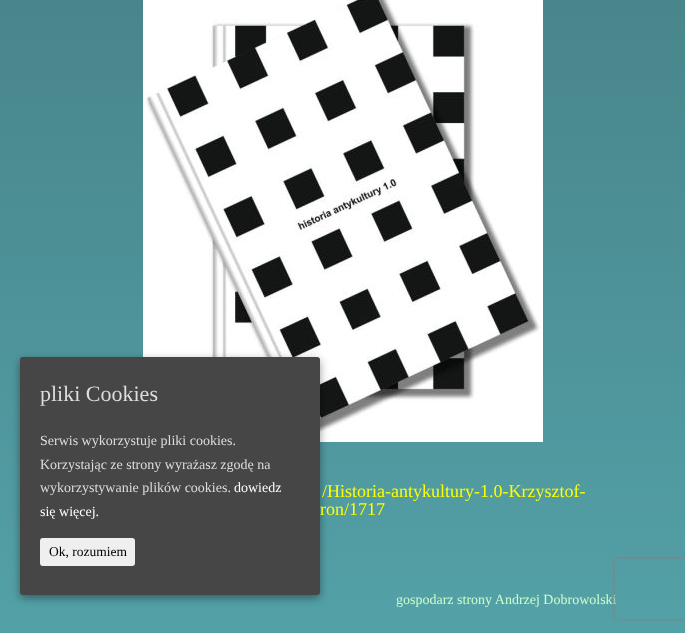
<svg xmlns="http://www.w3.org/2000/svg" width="685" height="633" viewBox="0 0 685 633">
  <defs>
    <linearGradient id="g1" gradientUnits="userSpaceOnUse" x1="342" y1="-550" x2="343" y2="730"><stop offset="0" stop-color="#3e6e72"/><stop offset="1" stop-color="#55a5ac"/></linearGradient>
    <filter id="blur1" x="-50%" y="-200%" width="200%" height="500%"><feGaussianBlur stdDeviation="4.5"/></filter>
    <clipPath id="clip1"><path d="M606 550H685V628H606ZM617 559H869C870 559 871 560 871 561V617C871 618 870 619 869 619H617C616 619 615 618 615 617V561C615 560 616 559 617 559Z" clip-rule="evenodd"/></clipPath>
    <filter id="blur2" x="-50%" y="-200%" width="200%" height="500%"><feGaussianBlur stdDeviation="2.5"/></filter>
  </defs>
  <rect width="100%" height="100%" fill="#ffffff"/>
  <rect x="0" y="0" width="685" height="633" fill="url(#g1)"/>
  <image x="143" y="0" width="400" height="442" href="img1.png"/>
  <rect x="20" y="360" width="300" height="238" rx="3" fill="#000000" fill-opacity="0.4" filter="url(#blur1)"/>
  <rect x="20" y="357" width="300" height="238" rx="3" fill="#464646"/>
  <text x="40" y="401" font-family="Liberation Serif" font-size="22" fill="#dddddd">pliki Cookies</text>
  <text x="40" y="445" font-family="Liberation Serif" font-size="14" fill="#dddddd">Serwis wykorzystuje pliki cookies.</text>
  <text x="40" y="469" font-family="Liberation Serif" font-size="14" fill="#dddddd">Korzystając ze strony wyrażasz zgodę na</text>
  <text x="40" y="492" font-family="Liberation Serif" font-size="14" fill="#dddddd">wykorzystywanie plików cookies.</text>
  <text x="234" y="492" font-family="Liberation Serif" font-size="14" fill="#ffffff">dowiedz</text>
  <text x="40" y="516" font-family="Liberation Serif" font-size="14" fill="#ffffff">się więcej.</text>
  <rect x="40" y="538" width="95" height="28" rx="3" fill="#efefef"/>
  <text x="49" y="556" font-family="Liberation Serif" font-size="13.5" fill="#000000">Ok, rozumiem</text>
  <text x="322" y="497" font-family="Liberation Serif" font-size="18" fill="#ffff00">/Historia-antykultury-1.0-Krzysztof-</text>
  <text x="320" y="515" font-family="Liberation Serif" font-size="18" fill="#ffff00">ron/1717</text>
  <text x="396" y="604" font-family="Liberation Serif" font-size="14" fill="#ccffcc">gospodarz strony Andrzej Dobrowolski</text>
  <g clip-path="url(#clip1)">
    <rect x="615" y="559" width="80" height="60" rx="2" fill="#808080" filter="url(#blur2)"/>
  </g>
</svg>
